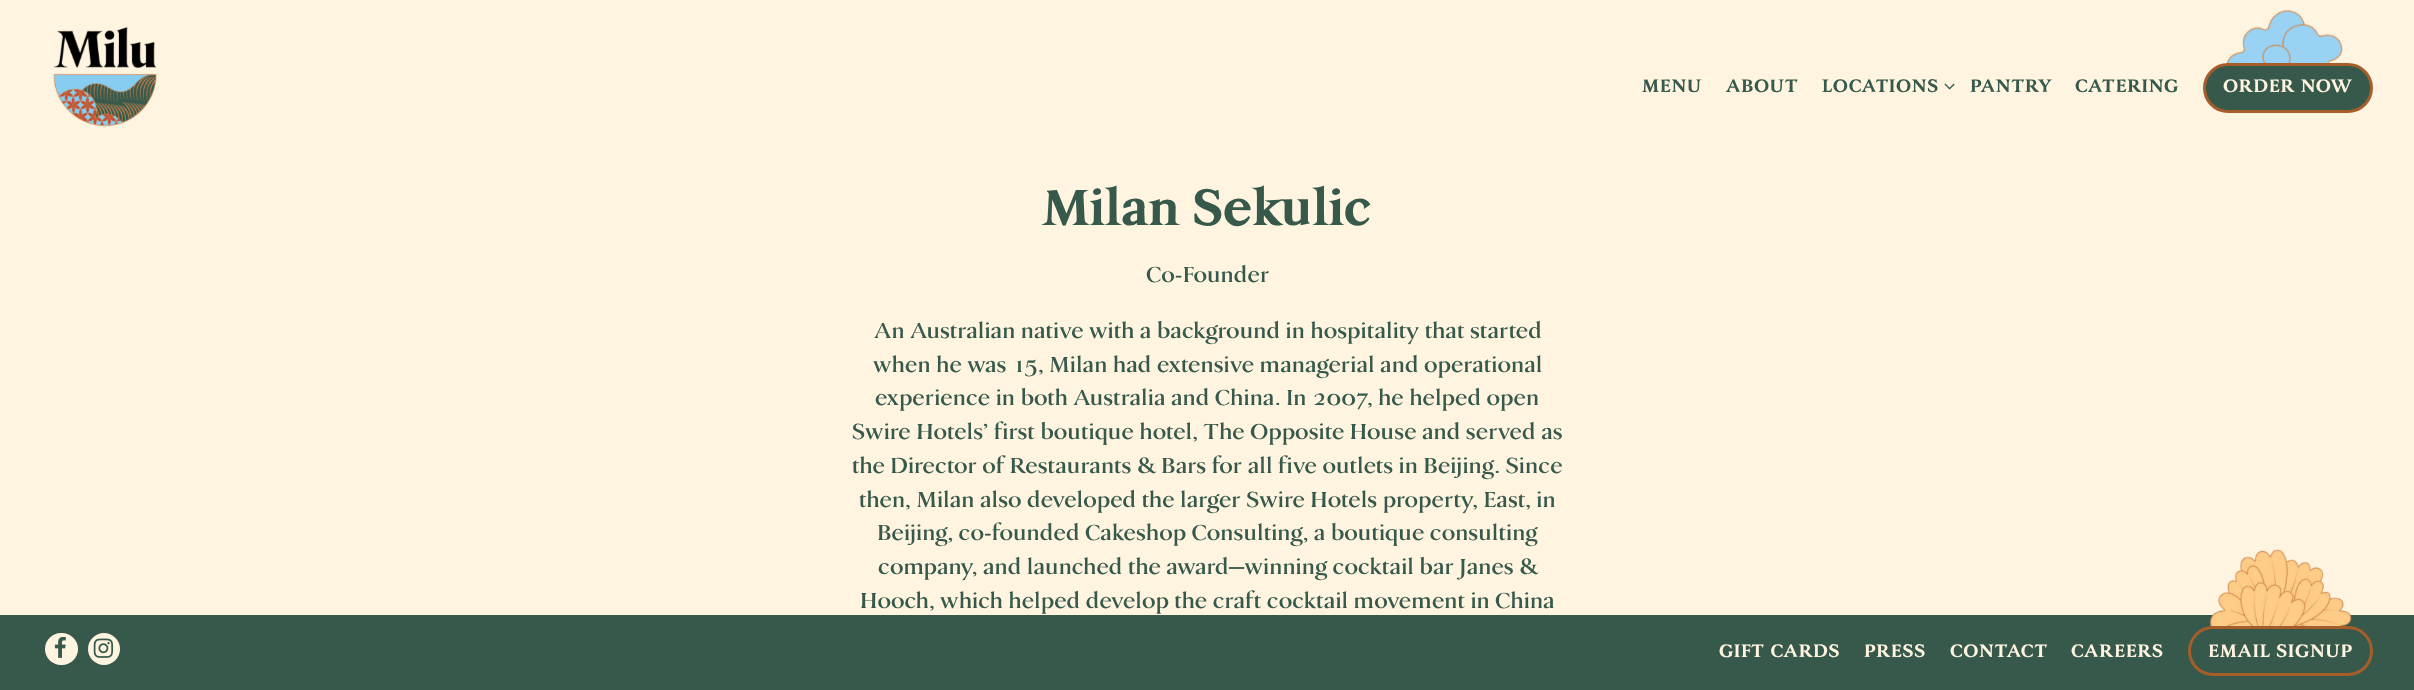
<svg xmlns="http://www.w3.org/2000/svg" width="2414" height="690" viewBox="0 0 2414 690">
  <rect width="100%" height="100%" fill="#fff4e0"/>
  <image x="53" y="26" width="104" height="101" href="img1.png"/>
  <text x="1642" y="92" font-family="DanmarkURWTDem" font-size="18" font-weight="bold" letter-spacing="1.25" fill="#36594b">MENU</text>
  <text x="1726" y="92" font-family="DanmarkURWTDem" font-size="18" font-weight="bold" letter-spacing="1.25" fill="#36594b">ABOUT</text>
  <text x="1822" y="92" font-family="DanmarkURWTDem" font-size="18" font-weight="bold" letter-spacing="1.25" fill="#36594b">LOCATIONS</text>
  <image x="1944" y="83" width="11" height="7" href="img2.png"/>
  <text x="1970" y="92" font-family="DanmarkURWTDem" font-size="18" font-weight="bold" letter-spacing="1.25" fill="#36594b">PANTRY</text>
  <text x="2075" y="92" font-family="DanmarkURWTDem" font-size="18" font-weight="bold" letter-spacing="1.25" fill="#36594b">CATERING</text>
  <image x="2226" y="9" width="117" height="55" href="img3.png"/>
  <rect x="2204.5" y="64.5" width="167" height="47" rx="23.5" fill="#36594b" stroke="#a55e2a" stroke-width="3"/>
  <text x="2223" y="92" font-family="DanmarkURWTDem" font-size="18" font-weight="bold" letter-spacing="1.25" fill="#fff4e0">ORDER NOW</text>
  <text x="1042" y="225" font-family="DanmarkURWTDem" font-size="50.5" font-weight="bold" letter-spacing="1.25" fill="#36594b">Milan Sekulic</text>
  <text x="1146" y="282" font-family="DanmarkURWTDem" font-size="22.5" fill="#36594b">Co-Founder</text>
  <text x="874" y="338" font-family="DanmarkURWTDem" font-size="22.5" fill="#36594b">An Australian native with a background in hospitality that started</text>
  <text x="873" y="372" font-family="DanmarkURWTDem" font-size="22.5" fill="#36594b">when he was 15, Milan had extensive managerial and operational</text>
  <text x="875" y="405" font-family="DanmarkURWTDem" font-size="22.5" fill="#36594b">experience in both Australia and China. In 2007, he helped open</text>
  <text x="852" y="439" font-family="DanmarkURWTDem" font-size="22.5" fill="#36594b">Swire Hotels’ first boutique hotel, The Opposite House and served as</text>
  <text x="852" y="473" font-family="DanmarkURWTDem" font-size="22.5" fill="#36594b">the Director of Restaurants &amp; Bars for all five outlets in Beijing. Since</text>
  <text x="859" y="507" font-family="DanmarkURWTDem" font-size="22.5" fill="#36594b">then, Milan also developed the larger Swire Hotels property, East, in</text>
  <text x="877" y="540" font-family="DanmarkURWTDem" font-size="22.5" fill="#36594b">Beijing, co-founded Cakeshop Consulting, a boutique consulting</text>
  <text x="878" y="574" font-family="DanmarkURWTDem" font-size="22.5" fill="#36594b">company, and launched the award—winning cocktail bar Janes &amp;</text>
  <text x="860" y="608" font-family="DanmarkURWTDem" font-size="22.5" fill="#36594b">Hooch, which helped develop the craft cocktail movement in China</text>
  <rect x="0" y="615" width="2414" height="75" fill="#36594b"/>
  <image x="2209" y="549" width="143" height="78" href="img4.png"/>
  <rect x="45" y="633" width="33" height="32" rx="16" fill="#fff4e0"/>
  <image x="54" y="637" width="12" height="21" href="img5.png"/>
  <circle cx="104" cy="649" r="16" fill="#fff4e0"/>
  <image x="93" y="638" width="21" height="20" href="img6.png"/>
  <text x="1719" y="657" font-family="DanmarkURWTDem" font-size="18" font-weight="bold" letter-spacing="1.25" fill="#fff4e0">GIFT CARDS</text>
  <text x="1864" y="657" font-family="DanmarkURWTDem" font-size="18" font-weight="bold" letter-spacing="1.25" fill="#fff4e0">PRESS</text>
  <text x="1950" y="657" font-family="DanmarkURWTDem" font-size="18" font-weight="bold" letter-spacing="1.25" fill="#fff4e0">CONTACT</text>
  <text x="2071" y="657" font-family="DanmarkURWTDem" font-size="18" font-weight="bold" letter-spacing="1.25" fill="#fff4e0">CAREERS</text>
  <rect x="2189.5" y="627.5" width="182" height="47" rx="23.5" fill="#36594b" stroke="#a55e2a" stroke-width="3"/>
  <text x="2208" y="657" font-family="DanmarkURWTDem" font-size="18" font-weight="bold" letter-spacing="1.25" fill="#fff4e0">EMAIL SIGNUP</text>
</svg>
